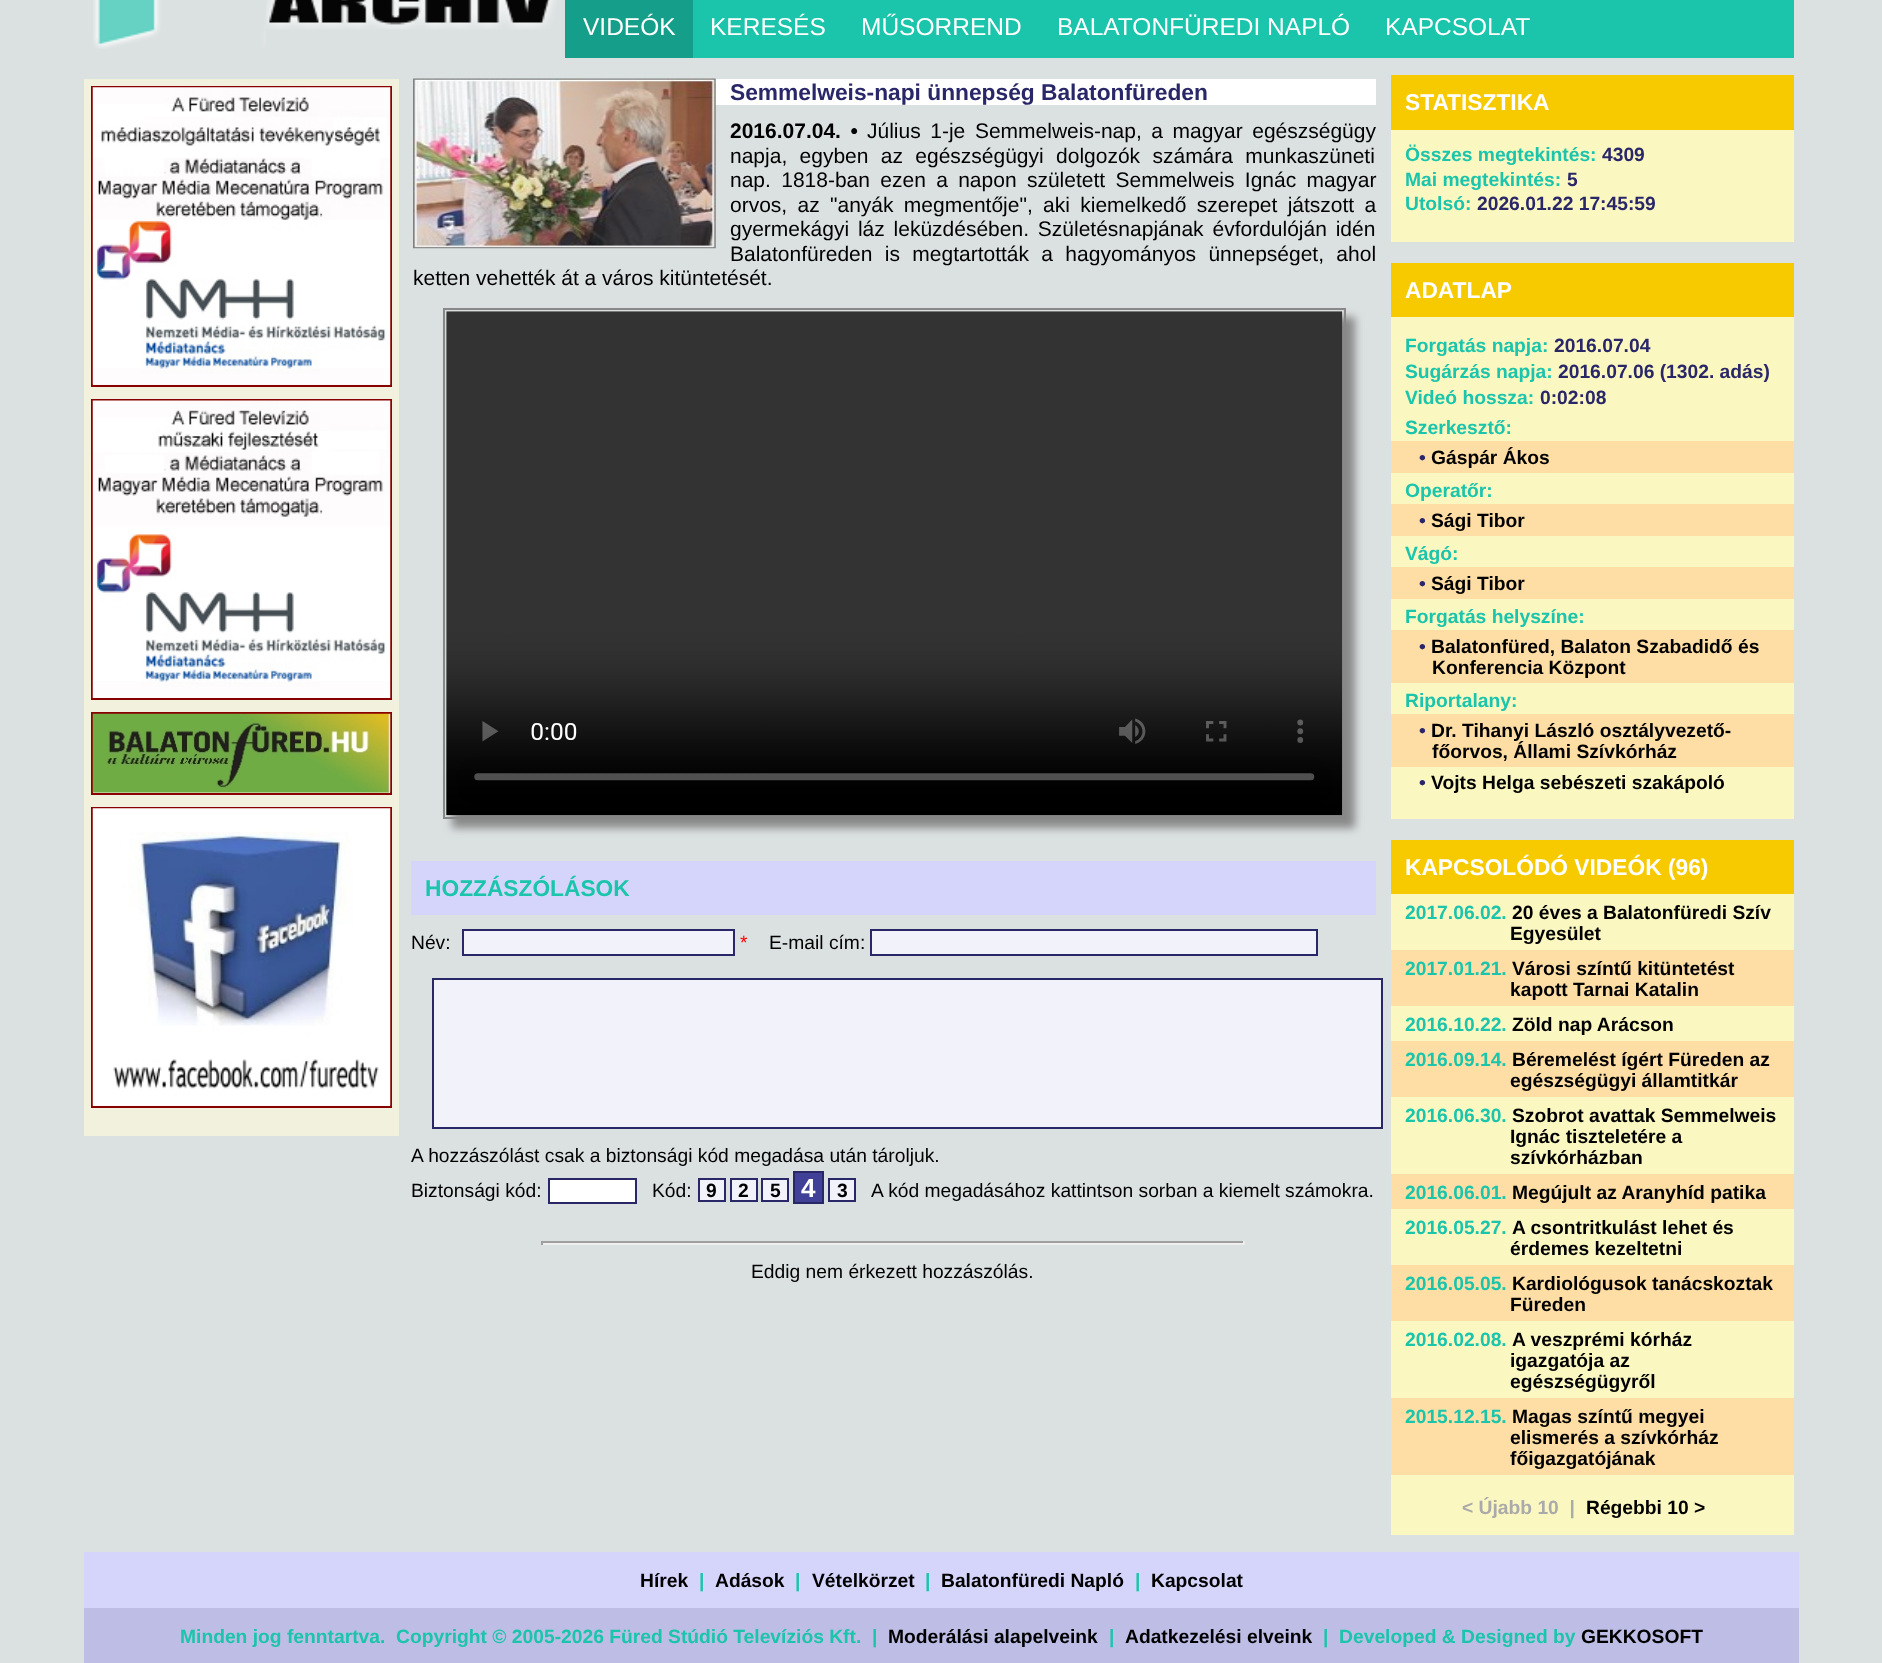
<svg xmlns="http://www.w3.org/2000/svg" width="1882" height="1663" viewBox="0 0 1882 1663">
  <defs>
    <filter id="blur1" x="-50%" y="-200%" width="200%" height="500%"><feGaussianBlur stdDeviation="4.5"/></filter>
  </defs>
  <rect width="100%" height="100%" fill="#dbe0e0"/>
  <image x="93" y="0" width="464" height="49" href="img1.png"/>
  <rect x="693" y="0" width="1101" height="58" fill="#1ac5ab"/>
  <rect x="565" y="0" width="128" height="58" fill="#159f8a"/>
  <text x="583" y="35" font-family="Liberation Sans" font-size="24.5" fill="#ffffff">VIDEÓK</text>
  <text x="710" y="35" font-family="Liberation Sans" font-size="24.5" fill="#ffffff">KERESÉS</text>
  <text x="861" y="35" font-family="Liberation Sans" font-size="24.5" fill="#ffffff">MŰSORREND</text>
  <text x="1057" y="35" font-family="Liberation Sans" font-size="24.5" fill="#ffffff">BALATONFÜREDI NAPLÓ</text>
  <text x="1385" y="35" font-family="Liberation Sans" font-size="24.5" fill="#ffffff">KAPCSOLAT</text>
  <rect x="84" y="79" width="315" height="1057" fill="#f2f1dd"/>
  <rect x="92" y="87" width="299" height="299" fill="none" stroke="#880000" stroke-width="2"/>
  <image x="92" y="87" width="299" height="298" href="img2.png"/>
  <rect x="92" y="400" width="299" height="299" fill="none" stroke="#880000" stroke-width="2"/>
  <image x="92" y="400" width="299" height="298" href="img3.png"/>
  <rect x="92" y="713" width="299" height="81" fill="none" stroke="#880000" stroke-width="2"/>
  <image x="92" y="713" width="299" height="80" href="img4.png"/>
  <rect x="92" y="808" width="299" height="299" fill="none" stroke="#880000" stroke-width="2"/>
  <image x="92" y="808" width="299" height="298" href="img5.png"/>
  <rect x="715" y="79" width="661" height="26" fill="#ffffff"/>
  <image x="413" y="78" width="303" height="171" href="img6.png"/>
  <text x="730" y="100" font-family="Liberation Sans" font-size="22.75" font-weight="bold" fill="#292768">Semmelweis-napi ünnepség Balatonfüreden</text>
  <text x="730" y="138" word-spacing="3.75" font-family="Liberation Sans" font-size="21" font-weight="bold" fill="#000000">2016.07.04. •</text>
  <text x="867" y="138" word-spacing="3.75" font-family="Liberation Sans" font-size="21" fill="#000000">Július 1-je Semmelweis-nap, a magyar egészségügy</text>
  <text x="730" y="163" word-spacing="6.5" font-family="Liberation Sans" font-size="21" fill="#000000">napja, egyben az egészségügyi dolgozók számára munkaszüneti</text>
  <text x="730" y="187" word-spacing="4.5" font-family="Liberation Sans" font-size="21" fill="#000000">nap. 1818-ban ezen a napon született Semmelweis Ignác magyar</text>
  <text x="730" y="212" word-spacing="4.5" font-family="Liberation Sans" font-size="21" fill="#000000">orvos, az "anyák megmentője", aki kiemelkedő szerepet játszott a</text>
  <text x="730" y="236" word-spacing="3" font-family="Liberation Sans" font-size="21" fill="#000000">gyermekágyi láz leküzdésében. Születésnapjának évfordulóján idén</text>
  <text x="730" y="261" word-spacing="6.5" font-family="Liberation Sans" font-size="21" fill="#000000">Balatonfüreden is megtartották a hagyományos ünnepséget, ahol</text>
  <text x="413" y="285" font-family="Liberation Sans" font-size="21" fill="#000000">ketten vehették át a város kitüntetését.</text>
  <rect x="452" y="317" width="903" height="511" fill="#888888" filter="url(#blur1)"/>
  <rect x="444" y="309" width="901" height="509" fill="none" stroke="#888888" stroke-width="2"/>
  <image x="446" y="311" width="897" height="505" href="img7.png"/>
  <rect x="411" y="861" width="965" height="54" fill="#d5d5fb"/>
  <text x="425" y="896" font-family="Liberation Sans" font-size="22.75" font-weight="bold" fill="#1ac5ab">HOZZÁSZÓLÁSOK</text>
  <text x="411" y="949" font-family="Liberation Sans" font-size="19.25" fill="#000000">Név:</text>
  <rect x="463" y="930" width="271" height="25" fill="#f2f2fb" stroke="#292768" stroke-width="2"/>
  <text x="740" y="949" font-family="Liberation Sans" font-size="19.25" fill="#ff0000">*</text>
  <text x="769" y="949" font-family="Liberation Sans" font-size="19.25" fill="#000000">E-mail cím:</text>
  <rect x="871" y="930" width="446" height="25" fill="#f2f2fb" stroke="#292768" stroke-width="2"/>
  <rect x="433" y="979" width="949" height="149" fill="#f2f2fb" stroke="#292768" stroke-width="2"/>
  <text x="411" y="1162" font-family="Liberation Sans" font-size="19.25" fill="#000000">A hozzászólást csak a biztonsági kód megadása után tároljuk.</text>
  <text x="411" y="1197" font-family="Liberation Sans" font-size="19.25" fill="#000000">Biztonsági kód:</text>
  <rect x="549" y="1179" width="87" height="24" fill="#ffffff" stroke="#292768" stroke-width="2"/>
  <text x="652" y="1197" font-family="Liberation Sans" font-size="19.25" fill="#000000">Kód:</text>
  <rect x="699" y="1179" width="26" height="22" fill="#f2f2fb" stroke="#292768" stroke-width="2"/>
  <text x="706" y="1197" font-family="Liberation Sans" font-size="19.25" font-weight="bold" fill="#000000">9</text>
  <rect x="731" y="1179" width="26" height="22" fill="#f2f2fb" stroke="#292768" stroke-width="2"/>
  <text x="738" y="1197" font-family="Liberation Sans" font-size="19.25" font-weight="bold" fill="#000000">2</text>
  <rect x="762" y="1179" width="26" height="22" fill="#f2f2fb" stroke="#292768" stroke-width="2"/>
  <text x="770" y="1197" font-family="Liberation Sans" font-size="19.25" font-weight="bold" fill="#000000">5</text>
  <rect x="794" y="1172" width="29" height="31" fill="#404097" stroke="#292768" stroke-width="2"/>
  <text x="801" y="1197" font-family="Liberation Sans" font-size="26" font-weight="bold" fill="#ffffff">4</text>
  <rect x="829" y="1179" width="26" height="22" fill="#f2f2fb" stroke="#292768" stroke-width="2"/>
  <text x="837" y="1197" font-family="Liberation Sans" font-size="19.25" font-weight="bold" fill="#000000">3</text>
  <text x="871" y="1197" font-family="Liberation Sans" font-size="19.25" fill="#000000">A kód megadásához kattintson sorban a kiemelt számokra.</text>
  <rect x="541" y="1241" width="703" height="2" fill="#9f9f9f"/>
  <rect x="1243" y="1241" width="2" height="4" fill="#eeeeee"/>
  <rect x="541" y="1243" width="703" height="2" fill="#eeeeee"/>
  <rect x="541" y="1241" width="2" height="4" fill="#9f9f9f"/>
  <text x="751" y="1278" font-family="Liberation Sans" font-size="19.25" fill="#000000">Eddig nem érkezett hozzászólás.</text>
  <rect x="1391" y="130" width="403" height="112" fill="#fbf7c1"/>
  <rect x="1391" y="75" width="403" height="55" fill="#f7ca00"/>
  <text x="1405" y="110" font-family="Liberation Sans" font-size="22.75" font-weight="bold" fill="#ffffff">STATISZTIKA</text>
  <text x="1405" y="161" font-family="Liberation Sans" font-size="19.25" font-weight="bold" fill="#1ac5ab">Összes megtekintés:</text>
  <text x="1602" y="161" font-family="Liberation Sans" font-size="19.25" font-weight="bold" fill="#292768">4309</text>
  <text x="1405" y="186" font-family="Liberation Sans" font-size="19.25" font-weight="bold" fill="#1ac5ab">Mai megtekintés:</text>
  <text x="1567" y="186" font-family="Liberation Sans" font-size="19.25" font-weight="bold" fill="#292768">5</text>
  <text x="1405" y="210" font-family="Liberation Sans" font-size="19.25" font-weight="bold" fill="#1ac5ab">Utolsó:</text>
  <text x="1477" y="210" font-family="Liberation Sans" font-size="19.25" font-weight="bold" fill="#292768">2026.01.22 17:45:59</text>
  <rect x="1391" y="317" width="403" height="502" fill="#fbf7c1"/>
  <rect x="1391" y="263" width="403" height="54" fill="#f7ca00"/>
  <text x="1405" y="298" font-family="Liberation Sans" font-size="22.75" font-weight="bold" fill="#ffffff">ADATLAP</text>
  <text x="1405" y="352" font-family="Liberation Sans" font-size="19.25" font-weight="bold" fill="#1ac5ab">Forgatás napja:</text>
  <text x="1554" y="352" font-family="Liberation Sans" font-size="19.25" font-weight="bold" fill="#292768">2016.07.04</text>
  <text x="1405" y="378" font-family="Liberation Sans" font-size="19.25" font-weight="bold" fill="#1ac5ab">Sugárzás napja:</text>
  <text x="1558" y="378" font-family="Liberation Sans" font-size="19.25" font-weight="bold" fill="#292768">2016.07.06 (1302. adás)</text>
  <text x="1405" y="404" font-family="Liberation Sans" font-size="19.25" font-weight="bold" fill="#1ac5ab">Videó hossza:</text>
  <text x="1540" y="404" font-family="Liberation Sans" font-size="19.25" font-weight="bold" fill="#292768">0:02:08</text>
  <text x="1405" y="434" font-family="Liberation Sans" font-size="19.25" font-weight="bold" fill="#1ac5ab">Szerkesztő:</text>
  <rect x="1391" y="441" width="403" height="32" fill="#ffdea5"/>
  <text x="1419" y="464" font-family="Liberation Sans" font-size="19.25" font-weight="bold" fill="#292768">•</text>
  <text x="1431" y="464" font-family="Liberation Sans" font-size="19.25" font-weight="bold" fill="#000000">Gáspár Ákos</text>
  <text x="1405" y="497" font-family="Liberation Sans" font-size="19.25" font-weight="bold" fill="#1ac5ab">Operatőr:</text>
  <rect x="1391" y="504" width="403" height="32" fill="#ffdea5"/>
  <text x="1419" y="527" font-family="Liberation Sans" font-size="19.25" font-weight="bold" fill="#292768">•</text>
  <text x="1431" y="527" font-family="Liberation Sans" font-size="19.25" font-weight="bold" fill="#000000">Sági Tibor</text>
  <text x="1405" y="560" font-family="Liberation Sans" font-size="19.25" font-weight="bold" fill="#1ac5ab">Vágó:</text>
  <rect x="1391" y="567" width="403" height="32" fill="#ffdea5"/>
  <text x="1419" y="590" font-family="Liberation Sans" font-size="19.25" font-weight="bold" fill="#292768">•</text>
  <text x="1431" y="590" font-family="Liberation Sans" font-size="19.25" font-weight="bold" fill="#000000">Sági Tibor</text>
  <text x="1405" y="623" font-family="Liberation Sans" font-size="19.25" font-weight="bold" fill="#1ac5ab">Forgatás helyszíne:</text>
  <rect x="1391" y="630" width="403" height="53" fill="#ffdea5"/>
  <text x="1419" y="653" font-family="Liberation Sans" font-size="19.25" font-weight="bold" fill="#292768">•</text>
  <text x="1431" y="653" font-family="Liberation Sans" font-size="19.25" font-weight="bold" fill="#000000">Balatonfüred, Balaton Szabadidő és</text>
  <text x="1432" y="674" font-family="Liberation Sans" font-size="19.25" font-weight="bold" fill="#000000">Konferencia Központ</text>
  <text x="1405" y="707" font-family="Liberation Sans" font-size="19.25" font-weight="bold" fill="#1ac5ab">Riportalany:</text>
  <rect x="1391" y="714" width="403" height="53" fill="#ffdea5"/>
  <text x="1419" y="737" font-family="Liberation Sans" font-size="19.25" font-weight="bold" fill="#292768">•</text>
  <text x="1431" y="737" font-family="Liberation Sans" font-size="19.25" font-weight="bold" fill="#000000">Dr. Tihanyi László osztályvezető-</text>
  <text x="1432" y="758" font-family="Liberation Sans" font-size="19.25" font-weight="bold" fill="#000000">főorvos, Állami Szívkórház</text>
  <text x="1419" y="789" font-family="Liberation Sans" font-size="19.25" font-weight="bold" fill="#292768">•</text>
  <text x="1431" y="789" font-family="Liberation Sans" font-size="19.25" font-weight="bold" fill="#000000">Vojts Helga sebészeti szakápoló</text>
  <rect x="1391" y="894" width="403" height="641" fill="#fbf7c1"/>
  <rect x="1391" y="840" width="403" height="54" fill="#f7ca00"/>
  <text x="1405" y="875" font-family="Liberation Sans" font-size="22.75" font-weight="bold" fill="#ffffff">KAPCSOLÓDÓ VIDEÓK (96)</text>
  <text x="1405" y="919" font-family="Liberation Sans" font-size="19.25" font-weight="bold" fill="#1ac5ab">2017.06.02.</text>
  <text x="1512" y="919" font-family="Liberation Sans" font-size="19.25" font-weight="bold" fill="#000000">20 éves a Balatonfüredi Szív</text>
  <text x="1510" y="940" font-family="Liberation Sans" font-size="19.25" font-weight="bold" fill="#000000">Egyesület</text>
  <rect x="1391" y="950" width="403" height="56" fill="#ffdea5"/>
  <text x="1405" y="975" font-family="Liberation Sans" font-size="19.25" font-weight="bold" fill="#1ac5ab">2017.01.21.</text>
  <text x="1512" y="975" font-family="Liberation Sans" font-size="19.25" font-weight="bold" fill="#000000">Városi színtű kitüntetést</text>
  <text x="1510" y="996" font-family="Liberation Sans" font-size="19.25" font-weight="bold" fill="#000000">kapott Tarnai Katalin</text>
  <text x="1405" y="1031" font-family="Liberation Sans" font-size="19.25" font-weight="bold" fill="#1ac5ab">2016.10.22.</text>
  <text x="1512" y="1031" font-family="Liberation Sans" font-size="19.25" font-weight="bold" fill="#000000">Zöld nap Arácson</text>
  <rect x="1391" y="1041" width="403" height="56" fill="#ffdea5"/>
  <text x="1405" y="1066" font-family="Liberation Sans" font-size="19.25" font-weight="bold" fill="#1ac5ab">2016.09.14.</text>
  <text x="1512" y="1066" font-family="Liberation Sans" font-size="19.25" font-weight="bold" fill="#000000">Béremelést ígért Füreden az</text>
  <text x="1510" y="1087" font-family="Liberation Sans" font-size="19.25" font-weight="bold" fill="#000000">egészségügyi államtitkár</text>
  <text x="1405" y="1122" font-family="Liberation Sans" font-size="19.25" font-weight="bold" fill="#1ac5ab">2016.06.30.</text>
  <text x="1512" y="1122" font-family="Liberation Sans" font-size="19.25" font-weight="bold" fill="#000000">Szobrot avattak Semmelweis</text>
  <text x="1510" y="1143" font-family="Liberation Sans" font-size="19.25" font-weight="bold" fill="#000000">Ignác tiszteletére a</text>
  <text x="1510" y="1164" font-family="Liberation Sans" font-size="19.25" font-weight="bold" fill="#000000">szívkórházban</text>
  <rect x="1391" y="1174" width="403" height="35" fill="#ffdea5"/>
  <text x="1405" y="1199" font-family="Liberation Sans" font-size="19.25" font-weight="bold" fill="#1ac5ab">2016.06.01.</text>
  <text x="1512" y="1199" font-family="Liberation Sans" font-size="19.25" font-weight="bold" fill="#000000">Megújult az Aranyhíd patika</text>
  <text x="1405" y="1234" font-family="Liberation Sans" font-size="19.25" font-weight="bold" fill="#1ac5ab">2016.05.27.</text>
  <text x="1512" y="1234" font-family="Liberation Sans" font-size="19.25" font-weight="bold" fill="#000000">A csontritkulást lehet és</text>
  <text x="1510" y="1255" font-family="Liberation Sans" font-size="19.25" font-weight="bold" fill="#000000">érdemes kezeltetni</text>
  <rect x="1391" y="1265" width="403" height="56" fill="#ffdea5"/>
  <text x="1405" y="1290" font-family="Liberation Sans" font-size="19.25" font-weight="bold" fill="#1ac5ab">2016.05.05.</text>
  <text x="1512" y="1290" font-family="Liberation Sans" font-size="19.25" font-weight="bold" fill="#000000">Kardiológusok tanácskoztak</text>
  <text x="1510" y="1311" font-family="Liberation Sans" font-size="19.25" font-weight="bold" fill="#000000">Füreden</text>
  <text x="1405" y="1346" font-family="Liberation Sans" font-size="19.25" font-weight="bold" fill="#1ac5ab">2016.02.08.</text>
  <text x="1512" y="1346" font-family="Liberation Sans" font-size="19.25" font-weight="bold" fill="#000000">A veszprémi kórház</text>
  <text x="1510" y="1367" font-family="Liberation Sans" font-size="19.25" font-weight="bold" fill="#000000">igazgatója az</text>
  <text x="1510" y="1388" font-family="Liberation Sans" font-size="19.25" font-weight="bold" fill="#000000">egészségügyről</text>
  <rect x="1391" y="1398" width="403" height="77" fill="#ffdea5"/>
  <text x="1405" y="1423" font-family="Liberation Sans" font-size="19.25" font-weight="bold" fill="#1ac5ab">2015.12.15.</text>
  <text x="1512" y="1423" font-family="Liberation Sans" font-size="19.25" font-weight="bold" fill="#000000">Magas színtű megyei</text>
  <text x="1510" y="1444" font-family="Liberation Sans" font-size="19.25" font-weight="bold" fill="#000000">elismerés a szívkórház</text>
  <text x="1510" y="1465" font-family="Liberation Sans" font-size="19.25" font-weight="bold" fill="#000000">főigazgatójának</text>
  <text x="1462" y="1514" font-family="Liberation Sans" font-size="19.25" font-weight="bold" fill="#aaaaaa" xml:space="preserve">&lt; Újabb 10  |</text>
  <text x="1586" y="1514" font-family="Liberation Sans" font-size="19.25" font-weight="bold" fill="#000000">Régebbi 10 &gt;</text>
  <rect x="84" y="1552" width="1715" height="56" fill="#d5d5fb"/>
  <text x="640" y="1587" font-family="Liberation Sans" font-size="19.25" font-weight="bold" fill="#000000">Hírek</text>
  <text x="699" y="1587" font-family="Liberation Sans" font-size="19.25" font-weight="bold" fill="#1ac5ab">|</text>
  <text x="715" y="1587" font-family="Liberation Sans" font-size="19.25" font-weight="bold" fill="#000000">Adások</text>
  <text x="795" y="1587" font-family="Liberation Sans" font-size="19.25" font-weight="bold" fill="#1ac5ab">|</text>
  <text x="812" y="1587" font-family="Liberation Sans" font-size="19.25" font-weight="bold" fill="#000000">Vételkörzet</text>
  <text x="925" y="1587" font-family="Liberation Sans" font-size="19.25" font-weight="bold" fill="#1ac5ab">|</text>
  <text x="941" y="1587" font-family="Liberation Sans" font-size="19.25" font-weight="bold" fill="#000000">Balatonfüredi Napló</text>
  <text x="1135" y="1587" font-family="Liberation Sans" font-size="19.25" font-weight="bold" fill="#1ac5ab">|</text>
  <text x="1151" y="1587" font-family="Liberation Sans" font-size="19.25" font-weight="bold" fill="#000000">Kapcsolat</text>
  <rect x="84" y="1608" width="1715" height="55" fill="#bdbde5"/>
  <text x="180" y="1643" font-family="Liberation Sans" font-size="19.25" font-weight="bold" fill="#1ac5ab" xml:space="preserve">Minden jog fenntartva.  Copyright © 2005-2026 Füred Stúdió Televíziós Kft.  |</text>
  <text x="888" y="1643" font-family="Liberation Sans" font-size="19.25" font-weight="bold" fill="#000000">Moderálási alapelveink</text>
  <text x="1109" y="1643" font-family="Liberation Sans" font-size="19.25" font-weight="bold" fill="#1ac5ab">|</text>
  <text x="1125" y="1643" font-family="Liberation Sans" font-size="19.25" font-weight="bold" fill="#000000">Adatkezelési elveink</text>
  <text x="1323" y="1643" font-family="Liberation Sans" font-size="19.25" font-weight="bold" fill="#1ac5ab" xml:space="preserve">|  Developed &amp; Designed by</text>
  <text x="1581" y="1643" font-family="Liberation Sans" font-size="19.25" font-weight="bold" fill="#000000">GEKKOSOFT</text>
</svg>
